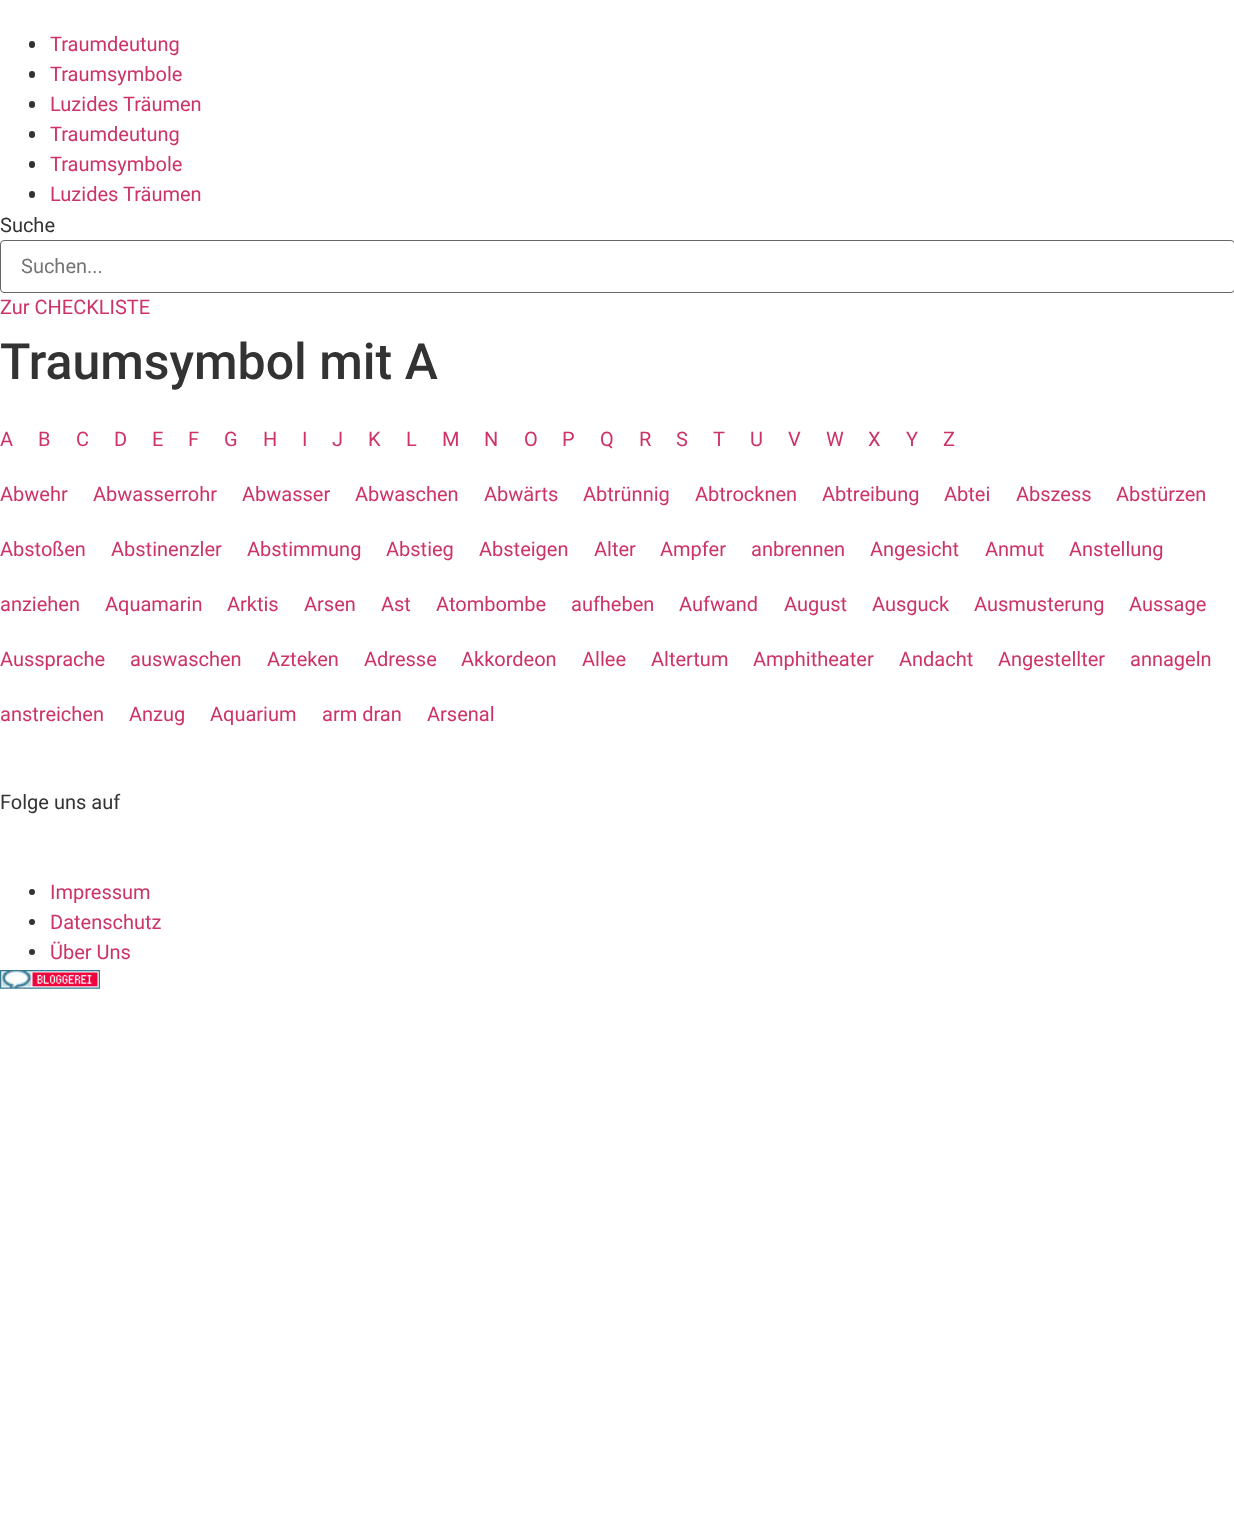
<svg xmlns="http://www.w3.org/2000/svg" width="1234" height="1518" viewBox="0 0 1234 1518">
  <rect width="100%" height="100%" fill="#ffffff"/>
  <rect x="29" y="41" width="6" height="7" rx="3" fill="#333333"/>
  <text x="50" y="51" font-family="Roboto" font-size="20" fill="#cc3366">Traumdeutung</text>
  <rect x="29" y="71" width="6" height="7" rx="3" fill="#333333"/>
  <text x="50" y="81" font-family="Roboto" font-size="20" fill="#cc3366">Traumsymbole</text>
  <rect x="29" y="101" width="6" height="7" rx="3" fill="#333333"/>
  <text x="50" y="111" font-family="Roboto" font-size="20" fill="#cc3366">Luzides Träumen</text>
  <rect x="29" y="131" width="6" height="7" rx="3" fill="#333333"/>
  <text x="50" y="141" font-family="Roboto" font-size="20" fill="#cc3366">Traumdeutung</text>
  <rect x="29" y="161" width="6" height="7" rx="3" fill="#333333"/>
  <text x="50" y="171" font-family="Roboto" font-size="20" fill="#cc3366">Traumsymbole</text>
  <rect x="29" y="191" width="6" height="7" rx="3" fill="#333333"/>
  <text x="50" y="201" font-family="Roboto" font-size="20" fill="#cc3366">Luzides Träumen</text>
  <text x="0" y="232" font-family="Roboto" font-size="20" fill="#333333">Suche</text>
  <rect x="0.5" y="240.5" width="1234" height="52" rx="3.5" fill="none" stroke="#666666"/>
  <text x="21" y="273" font-family="Roboto" font-size="20" fill="#757575">Suchen...</text>
  <text x="0" y="314" font-family="Roboto" font-size="20" fill="#cc3366">Zur CHECKLISTE</text>
  <text x="0" y="379" font-family="Roboto" font-size="50" font-weight="500" fill="#333333">Traumsymbol mit A</text>
  <text x="0" y="446" font-family="Roboto" font-size="20" fill="#cc3366">A</text>
  <text x="38" y="446" font-family="Roboto" font-size="20" fill="#cc3366">B</text>
  <text x="76" y="446" font-family="Roboto" font-size="20" fill="#cc3366">C</text>
  <text x="114" y="446" font-family="Roboto" font-size="20" fill="#cc3366">D</text>
  <text x="152" y="446" font-family="Roboto" font-size="20" fill="#cc3366">E</text>
  <text x="188" y="446" font-family="Roboto" font-size="20" fill="#cc3366">F</text>
  <text x="224" y="446" font-family="Roboto" font-size="20" fill="#cc3366">G</text>
  <text x="263" y="446" font-family="Roboto" font-size="20" fill="#cc3366">H</text>
  <text x="302" y="446" font-family="Roboto" font-size="20" fill="#cc3366">I</text>
  <text x="332" y="446" font-family="Roboto" font-size="20" fill="#cc3366">J</text>
  <text x="368" y="446" font-family="Roboto" font-size="20" fill="#cc3366">K</text>
  <text x="406" y="446" font-family="Roboto" font-size="20" fill="#cc3366">L</text>
  <text x="442" y="446" font-family="Roboto" font-size="20" fill="#cc3366">M</text>
  <text x="484" y="446" font-family="Roboto" font-size="20" fill="#cc3366">N</text>
  <text x="524" y="446" font-family="Roboto" font-size="20" fill="#cc3366">O</text>
  <text x="562" y="446" font-family="Roboto" font-size="20" fill="#cc3366">P</text>
  <text x="600" y="446" font-family="Roboto" font-size="20" fill="#cc3366">Q</text>
  <text x="639" y="446" font-family="Roboto" font-size="20" fill="#cc3366">R</text>
  <text x="676" y="446" font-family="Roboto" font-size="20" fill="#cc3366">S</text>
  <text x="713" y="446" font-family="Roboto" font-size="20" fill="#cc3366">T</text>
  <text x="750" y="446" font-family="Roboto" font-size="20" fill="#cc3366">U</text>
  <text x="788" y="446" font-family="Roboto" font-size="20" fill="#cc3366">V</text>
  <text x="826" y="446" font-family="Roboto" font-size="20" fill="#cc3366">W</text>
  <text x="868" y="446" font-family="Roboto" font-size="20" fill="#cc3366">X</text>
  <text x="906" y="446" font-family="Roboto" font-size="20" fill="#cc3366">Y</text>
  <text x="943" y="446" font-family="Roboto" font-size="20" fill="#cc3366">Z</text>
  <text x="0" y="501" font-family="Roboto" font-size="20" fill="#cc3366">Abwehr</text>
  <text x="93" y="501" font-family="Roboto" font-size="20" fill="#cc3366">Abwasserrohr</text>
  <text x="242" y="501" font-family="Roboto" font-size="20" fill="#cc3366">Abwasser</text>
  <text x="355" y="501" font-family="Roboto" font-size="20" fill="#cc3366">Abwaschen</text>
  <text x="484" y="501" font-family="Roboto" font-size="20" fill="#cc3366">Abwärts</text>
  <text x="583" y="501" font-family="Roboto" font-size="20" fill="#cc3366">Abtrünnig</text>
  <text x="695" y="501" font-family="Roboto" font-size="20" fill="#cc3366">Abtrocknen</text>
  <text x="822" y="501" font-family="Roboto" font-size="20" fill="#cc3366">Abtreibung</text>
  <text x="944" y="501" font-family="Roboto" font-size="20" fill="#cc3366">Abtei</text>
  <text x="1016" y="501" font-family="Roboto" font-size="20" fill="#cc3366">Abszess</text>
  <text x="1116" y="501" font-family="Roboto" font-size="20" fill="#cc3366">Abstürzen</text>
  <text x="0" y="556" font-family="Roboto" font-size="20" fill="#cc3366">Abstoßen</text>
  <text x="111" y="556" font-family="Roboto" font-size="20" fill="#cc3366">Abstinenzler</text>
  <text x="247" y="556" font-family="Roboto" font-size="20" fill="#cc3366">Abstimmung</text>
  <text x="386" y="556" font-family="Roboto" font-size="20" fill="#cc3366">Abstieg</text>
  <text x="479" y="556" font-family="Roboto" font-size="20" fill="#cc3366">Absteigen</text>
  <text x="594" y="556" font-family="Roboto" font-size="20" fill="#cc3366">Alter</text>
  <text x="660" y="556" font-family="Roboto" font-size="20" fill="#cc3366">Ampfer</text>
  <text x="751" y="556" font-family="Roboto" font-size="20" fill="#cc3366">anbrennen</text>
  <text x="870" y="556" font-family="Roboto" font-size="20" fill="#cc3366">Angesicht</text>
  <text x="985" y="556" font-family="Roboto" font-size="20" fill="#cc3366">Anmut</text>
  <text x="1069" y="556" font-family="Roboto" font-size="20" fill="#cc3366">Anstellung</text>
  <text x="0" y="611" font-family="Roboto" font-size="20" fill="#cc3366">anziehen</text>
  <text x="105" y="611" font-family="Roboto" font-size="20" fill="#cc3366">Aquamarin</text>
  <text x="227" y="611" font-family="Roboto" font-size="20" fill="#cc3366">Arktis</text>
  <text x="304" y="611" font-family="Roboto" font-size="20" fill="#cc3366">Arsen</text>
  <text x="381" y="611" font-family="Roboto" font-size="20" fill="#cc3366">Ast</text>
  <text x="436" y="611" font-family="Roboto" font-size="20" fill="#cc3366">Atombombe</text>
  <text x="571" y="611" font-family="Roboto" font-size="20" fill="#cc3366">aufheben</text>
  <text x="679" y="611" font-family="Roboto" font-size="20" fill="#cc3366">Aufwand</text>
  <text x="784" y="611" font-family="Roboto" font-size="20" fill="#cc3366">August</text>
  <text x="872" y="611" font-family="Roboto" font-size="20" fill="#cc3366">Ausguck</text>
  <text x="974" y="611" font-family="Roboto" font-size="20" fill="#cc3366">Ausmusterung</text>
  <text x="1129" y="611" font-family="Roboto" font-size="20" fill="#cc3366">Aussage</text>
  <text x="0" y="666" font-family="Roboto" font-size="20" fill="#cc3366">Aussprache</text>
  <text x="130" y="666" font-family="Roboto" font-size="20" fill="#cc3366">auswaschen</text>
  <text x="267" y="666" font-family="Roboto" font-size="20" fill="#cc3366">Azteken</text>
  <text x="364" y="666" font-family="Roboto" font-size="20" fill="#cc3366">Adresse</text>
  <text x="461" y="666" font-family="Roboto" font-size="20" fill="#cc3366">Akkordeon</text>
  <text x="582" y="666" font-family="Roboto" font-size="20" fill="#cc3366">Allee</text>
  <text x="651" y="666" font-family="Roboto" font-size="20" fill="#cc3366">Altertum</text>
  <text x="753" y="666" font-family="Roboto" font-size="20" fill="#cc3366">Amphitheater</text>
  <text x="899" y="666" font-family="Roboto" font-size="20" fill="#cc3366">Andacht</text>
  <text x="998" y="666" font-family="Roboto" font-size="20" fill="#cc3366">Angestellter</text>
  <text x="1130" y="666" font-family="Roboto" font-size="20" fill="#cc3366">annageln</text>
  <text x="0" y="721" font-family="Roboto" font-size="20" fill="#cc3366">anstreichen</text>
  <text x="129" y="721" font-family="Roboto" font-size="20" fill="#cc3366">Anzug</text>
  <text x="210" y="721" font-family="Roboto" font-size="20" fill="#cc3366">Aquarium</text>
  <text x="322" y="721" font-family="Roboto" font-size="20" fill="#cc3366">arm dran</text>
  <text x="427" y="721" font-family="Roboto" font-size="20" fill="#cc3366">Arsenal</text>
  <text x="0" y="809" font-family="Roboto" font-size="20" fill="#333333">Folge uns auf</text>
  <circle cx="32" cy="892" r="3" fill="#333333"/>
  <text x="50" y="899" font-family="Roboto" font-size="20" fill="#cc3366">Impressum</text>
  <circle cx="32" cy="922" r="3" fill="#333333"/>
  <text x="50" y="929" font-family="Roboto" font-size="20" fill="#cc3366">Datenschutz</text>
  <circle cx="32" cy="952" r="3" fill="#333333"/>
  <text x="50" y="959" font-family="Roboto" font-size="20" fill="#cc3366">Über Uns</text>
  <image x="0" y="970" width="100" height="19" href="img1.png"/>
</svg>
